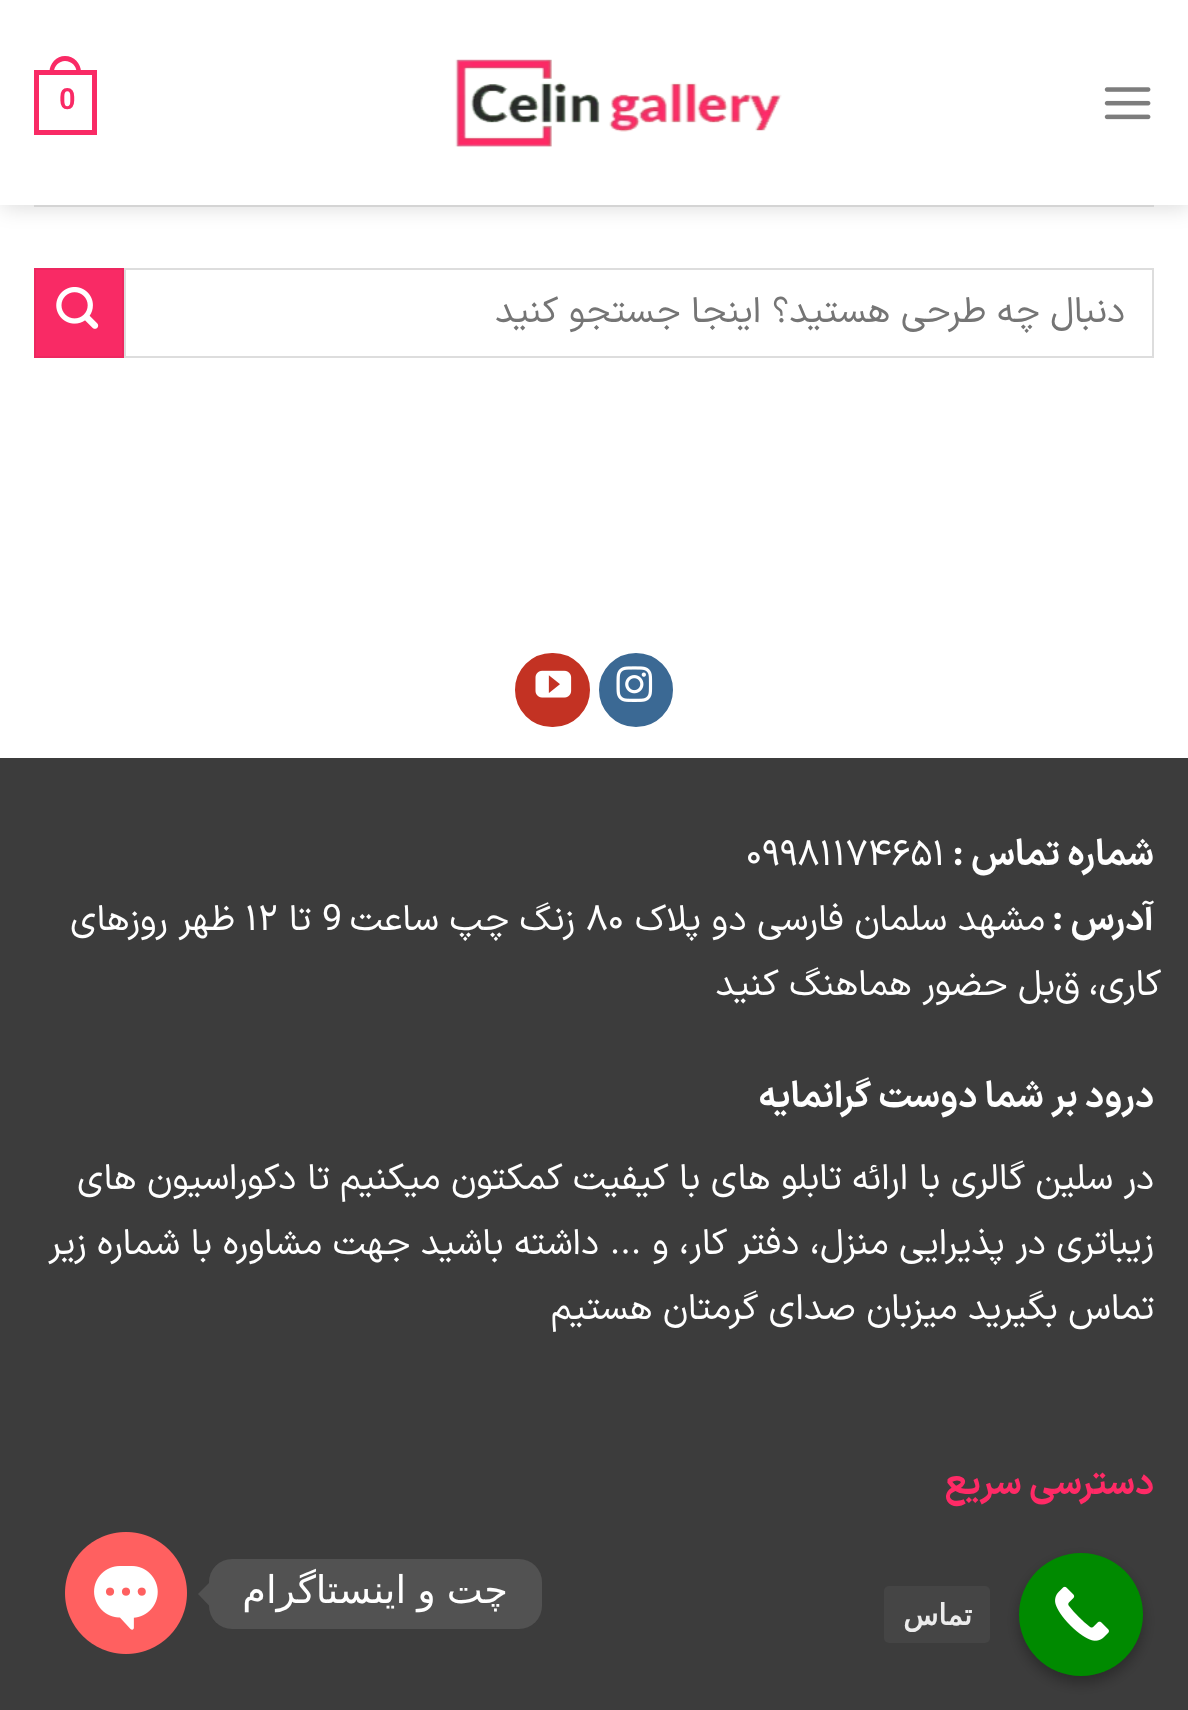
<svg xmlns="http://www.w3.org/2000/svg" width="1188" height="1710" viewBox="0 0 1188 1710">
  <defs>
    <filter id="blur1" x="-50%" y="-200%" width="200%" height="500%"><feGaussianBlur stdDeviation="11"/></filter>
    <filter id="blur2" x="-50%" y="-200%" width="200%" height="500%"><feGaussianBlur stdDeviation="7"/></filter>
  </defs>
  <rect width="100%" height="100%" fill="#ffffff"/>
  <rect x="2" y="2" width="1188" height="205" fill="#000000" fill-opacity="0.15" filter="url(#blur1)"/>
  <rect x="0" y="0" width="1188" height="205" fill="#ffffff"/>
  <image x="1104" y="87" width="47" height="33" href="img1.png"/>
  <image x="455" y="59" width="327" height="88" href="img2.png"/>
  <rect x="36.5" y="72.5" width="58" height="60" fill="none" stroke="#f92a65" stroke-width="5"/>
  <path d="M65 56C74 56 81 63.5 81 72V74H49.5V72C49.5 63.5 56.5 56 65 56ZM65 61C71.5 61 76.5 66 76.5 72V74H54V72C54 66 59 61 65 61Z" fill="#f92a65" fill-rule="evenodd"/>
  <text x="59" y="109" font-family="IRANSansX" font-size="29" font-weight="bold" fill="#f92a65">0</text>
  <rect x="34" y="205" width="1120" height="2" fill="#d4d4d4"/>
  <rect x="125" y="269" width="1028" height="88" fill="none" stroke="#dddddd" stroke-width="2"/>
  <text x="1125" y="322" font-family="IRANSansX" font-size="36" direction="rtl" fill="#757575">دنبال چه طرحی هستید؟ اینجا جستجو کنید</text>
  <rect x="35" y="269" width="88" height="88" fill="#f92a65" stroke="#ed2860" stroke-width="2"/>
  <image x="56" y="287" width="43" height="42" href="img3.png"/>
  <circle cx="636" cy="690" r="36" fill="#3b6994" stroke="#3b6994" stroke-width="2"/>
  <image x="616" y="666" width="37" height="36" href="img4.png"/>
  <rect x="516" y="654" width="73" height="72" rx="36" fill="#c33223" stroke="#c33223" stroke-width="2"/>
  <image x="535" y="670" width="37" height="28" href="img5.png"/>
  <rect x="0" y="758" width="1188" height="952" fill="#3c3c3c"/>
  <text x="1154" y="865" font-family="IRANSansX" font-size="36" font-weight="bold" direction="rtl" fill="#ffffff">شماره تماس :</text>
  <text x="746" y="865" font-family="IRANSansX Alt" font-size="36" fill="#ffffff">09981174651</text>
  <text x="1154" y="930" font-family="IRANSansX" font-size="36" font-weight="bold" direction="rtl" fill="#ffffff">آدرس :</text>
  <text x="1045" y="930" font-family="IRANSansX" font-size="36" direction="rtl" fill="#ffffff">مشهد</text>
  <text x="947" y="930" font-family="IRANSansX" font-size="36" direction="rtl" fill="#ffffff">سلمان فارسی دو پلاک</text>
  <text x="586" y="930" font-family="IRANSansX Alt" font-size="36" fill="#ffffff">80</text>
  <text x="575" y="930" font-family="IRANSansX" font-size="36" direction="rtl" fill="#ffffff">زنگ چپ ساعت</text>
  <text x="322" y="930" font-family="IRANSansX" font-size="36" fill="#ffffff">9</text>
  <text x="311" y="930" font-family="IRANSansX" font-size="36" direction="rtl" fill="#ffffff">تا</text>
  <text x="245" y="930" font-family="IRANSansX Alt" font-size="36" fill="#ffffff">12</text>
  <text x="235" y="930" font-family="IRANSansX" font-size="36" direction="rtl" fill="#ffffff">ظهر روزهای</text>
  <text x="1161" y="995" word-spacing="-2" font-family="IRANSansX" font-size="36" direction="rtl" fill="#ffffff">کاری، ق</text>
  <text x="1055" y="995" font-family="IRANSansX" font-size="36" direction="rtl" fill="#ffffff">بل حضور هماهنگ کنید</text>
  <text x="1154" y="1107" font-family="IRANSansX" font-size="36" font-weight="bold" direction="rtl" fill="#ffffff">درود بر شما دوست گرانمایه</text>
  <text x="1154" y="1189" font-family="IRANSansX" font-size="36" direction="rtl" fill="#ffffff">در سلین گالری با ارائه تابلو های با کیفیت کمکتون میکنیم تا دکوراسیون های</text>
  <text x="1154" y="1254" font-family="IRANSansX" font-size="36" direction="rtl" fill="#ffffff">زیباتری در پذیرایی منزل، دفتر کار، و ... داشته باشید جهت مشاوره با شماره زیر</text>
  <text x="1154" y="1319" font-family="IRANSansX" font-size="36" direction="rtl" fill="#ffffff">تماس بگیرید میزبان صدای گرمتان هستیم</text>
  <text x="1154" y="1494" font-family="IRANSansX" font-size="36" font-weight="bold" direction="rtl" fill="#ff2a66">دسترسی سریع</text>
  <rect x="209" y="1559" width="333" height="70" rx="23" fill="#525252"/>
  <text x="508" y="1603" word-spacing="-1" font-family="DejaVu Sans" font-size="38.25" direction="rtl" fill="#ffffff">چت و اینستاگرام</text>
  <path d="M209 1583V1605.5L198 1594Z" fill="#525252"/>
  <image x="65" y="1532" width="122" height="122" href="img6.png"/>
  <rect x="1019" y="1559" width="124" height="124" rx="62" fill="#000000" fill-opacity="0.3" filter="url(#blur2)"/>
  <rect x="1019" y="1553" width="124" height="123" rx="61.5" fill="#008a00"/>
  <image x="1055" y="1586" width="54" height="55" href="img7.png"/>
  <rect x="884" y="1586" width="106" height="57" rx="5" fill="#464646" fill-opacity="0.9"/>
  <text x="972" y="1625" font-family="DejaVu Sans" font-size="29" font-weight="bold" direction="rtl" fill="#ececec">تماس</text>
</svg>
